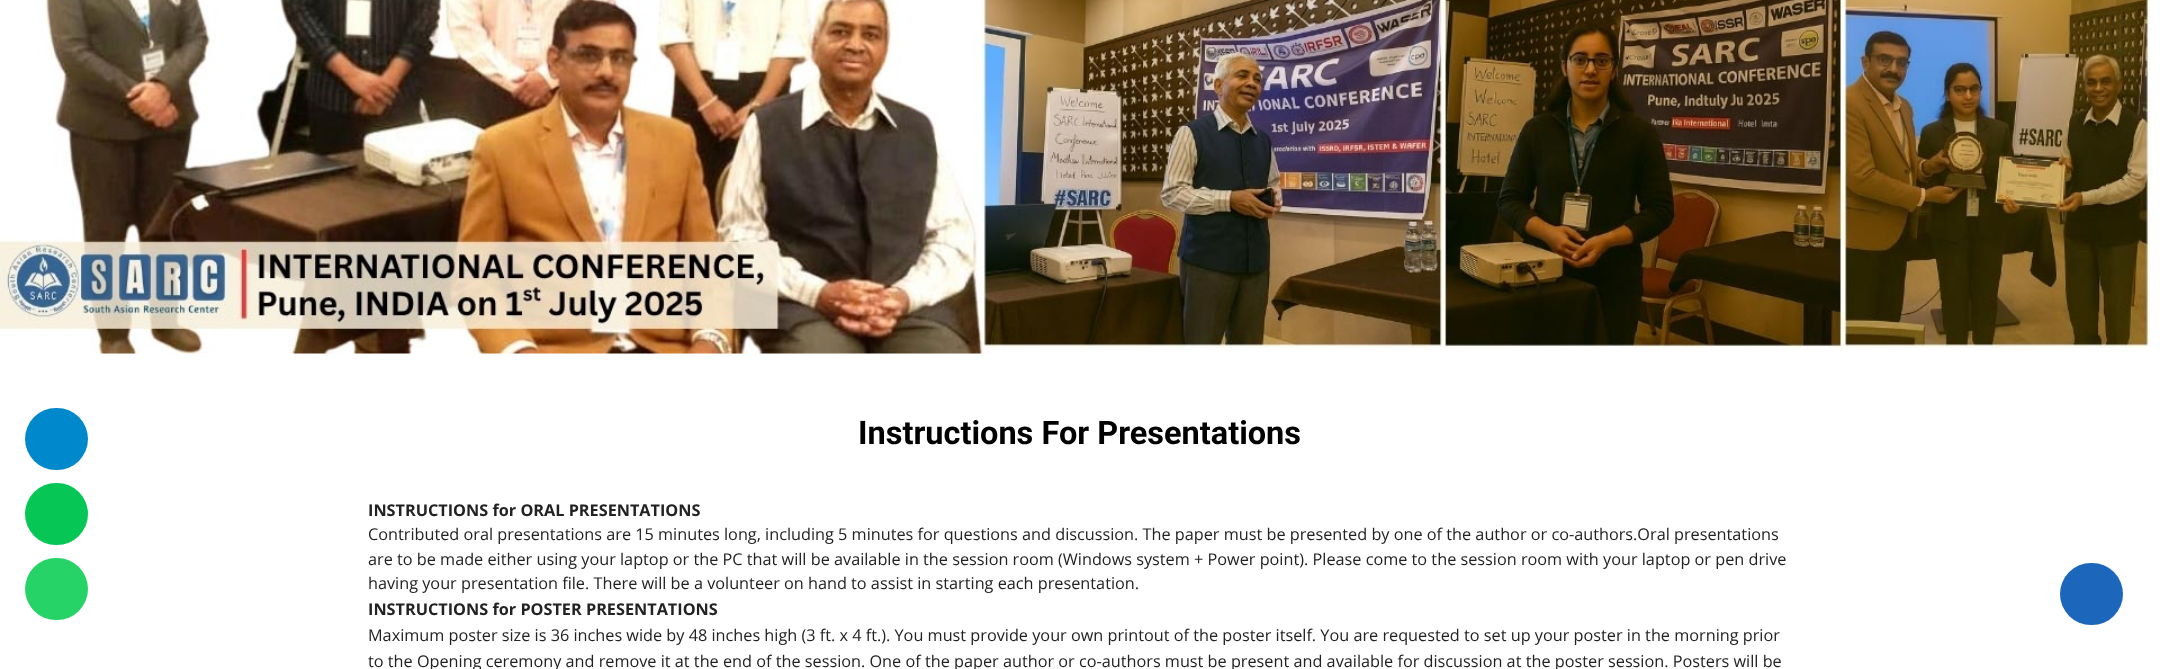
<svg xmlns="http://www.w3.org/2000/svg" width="2160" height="669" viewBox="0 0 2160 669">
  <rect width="100%" height="100%" fill="#ffffff"/>
  <image x="0" y="0" width="2160" height="354" href="img1.png"/>
  <rect x="25" y="408" width="63" height="62" rx="31" fill="#0088cc"/>
  <text x="858" y="444" font-family="Roboto" font-size="32.5" font-weight="bold" fill="#000000">Instructions For Presentations</text>
  <text x="368" y="516" font-family="Open Sans" font-size="16.25" font-weight="bold" fill="#222222">INSTRUCTIONS for ORAL PRESENTATIONS</text>
  <text x="368" y="540" font-family="Open Sans" font-size="16.25" fill="#222222">Contributed oral presentations are 15 minutes long, including 5 minutes for questions and discussion. The paper must be presented by one of the author or co-authors.Oral presentations</text>
  <text x="368" y="565" font-family="Open Sans" font-size="16.25" fill="#222222">are to be made either using your laptop or the PC that will be available in the session room (Windows system + Power point). Please come to the session room with your laptop or pen drive</text>
  <text x="368" y="589" font-family="Open Sans" font-size="16.25" fill="#222222">having your presentation file. There will be a volunteer on hand to assist in starting each presentation.</text>
  <text x="368" y="615" font-family="Open Sans" font-size="16.25" font-weight="bold" fill="#222222">INSTRUCTIONS for POSTER PRESENTATIONS</text>
  <text x="368" y="641" font-family="Open Sans" font-size="16.25" fill="#222222">Maximum poster size is 36 inches wide by 48 inches high (3 ft. x 4 ft.). You must provide your own printout of the poster itself. You are requested to set up your poster in the morning prior</text>
  <text x="368" y="667" font-family="Open Sans" font-size="16.25" fill="#222222">to the Opening ceremony and remove it at the end of the session. One of the paper author or co-authors must be present and available for discussion at the poster session. Posters will be</text>
  <rect x="25" y="483" width="63" height="62" rx="31" fill="#06c755"/>
  <rect x="25" y="558" width="63" height="62" rx="31" fill="#25d366"/>
  <rect x="2060" y="563" width="63" height="62" rx="31" fill="#1c66bb"/>
</svg>
